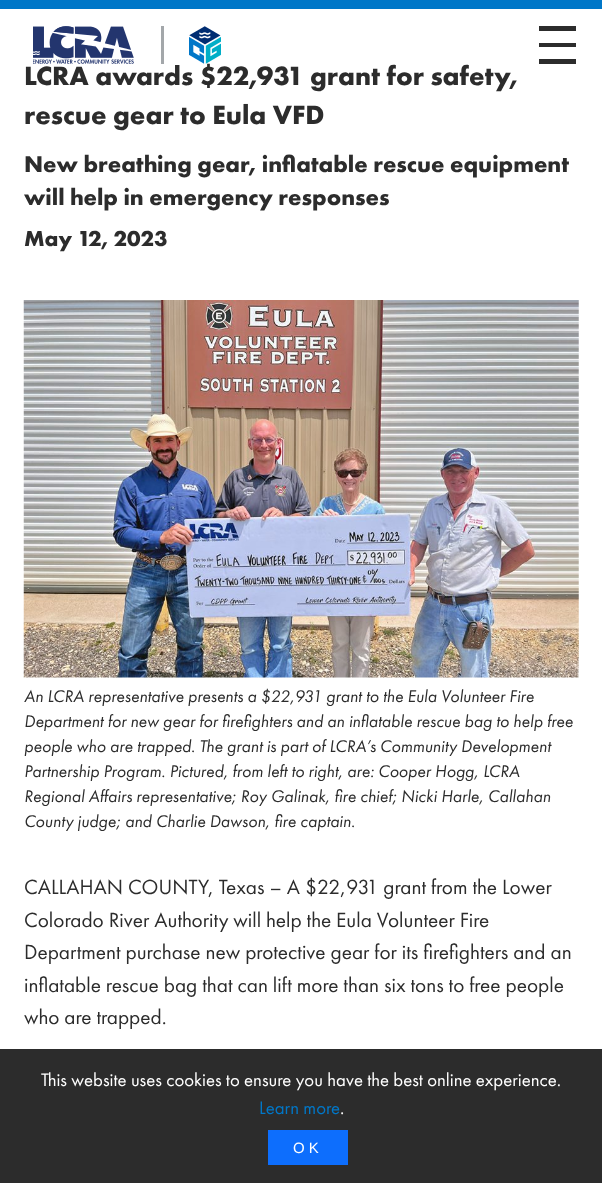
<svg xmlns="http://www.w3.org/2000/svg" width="602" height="1183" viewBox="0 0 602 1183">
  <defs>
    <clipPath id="clip1"><rect x="539" y="26" width="37" height="38"/></clipPath>
  </defs>
  <rect width="100%" height="100%" fill="#ffffff"/>
  <rect x="0" y="0" width="602" height="9" fill="#0077c8"/>
  <text x="24" y="85" font-family="Futura PT" font-size="27.5" font-weight="bold" fill="#2c2c2c">LCRA awards $22,931 grant for safety,</text>
  <image x="33" y="26" width="101" height="38" href="img1.png"/>
  <rect x="161" y="26" width="3" height="38" fill="#a3a7aa"/>
  <image x="189" y="26" width="32" height="38" href="img2.png"/>
  <g clip-path="url(#clip1)">
    <path d="M539 26H583V31H539ZM539 59H583V64H539ZM539 43H583V47H539Z" fill="#2c2c2c" fill-rule="evenodd"/>
  </g>
  <text x="24" y="124" font-family="Futura PT" font-size="27.5" font-weight="bold" fill="#2c2c2c">rescue gear to Eula VFD</text>
  <text x="24" y="172" font-family="Futura PT" font-size="23.75" font-weight="bold" fill="#2c2c2c">New breathing gear, inflatable rescue equipment</text>
  <text x="24" y="205" font-family="Futura PT" font-size="23.75" font-weight="bold" fill="#2c2c2c">will help in emergency responses</text>
  <text x="24" y="246" font-family="Futura PT" font-size="22.5" font-weight="bold" fill="#2c2c2c">May 12, 2023</text>
  <image x="23" y="300" width="556" height="378" href="img3.png"/>
  <text x="24" y="702" font-family="Futura PT" font-size="17.5" font-style="italic" fill="#2c2c2c">An LCRA representative presents a $22,931 grant to the Eula Volunteer Fire</text>
  <text x="24" y="727" font-family="Futura PT" font-size="17.5" font-style="italic" fill="#2c2c2c">Department for new gear for firefighters and an inflatable rescue bag to help free</text>
  <text x="24" y="752" font-family="Futura PT" font-size="17.5" font-style="italic" fill="#2c2c2c">people who are trapped. The grant is part of LCRA’s Community Development</text>
  <text x="24" y="777" font-family="Futura PT" font-size="17.5" font-style="italic" fill="#2c2c2c">Partnership Program. Pictured, from left to right, are: Cooper Hogg, LCRA</text>
  <text x="24" y="802" font-family="Futura PT" font-size="17.5" font-style="italic" fill="#2c2c2c">Regional Affairs representative; Roy Galinak, fire chief; Nicki Harle, Callahan</text>
  <text x="24" y="827" font-family="Futura PT" font-size="17.5" font-style="italic" fill="#2c2c2c">County judge; and Charlie Dawson, fire captain.</text>
  <text x="24" y="894" font-family="Futura PT" font-size="21.25" fill="#2c2c2c">CALLAHAN COUNTY, Texas – A $22,931 grant from the Lower</text>
  <text x="24" y="927" font-family="Futura PT" font-size="21.25" fill="#2c2c2c">Colorado River Authority will help the Eula Volunteer Fire</text>
  <text x="24" y="959" font-family="Futura PT" font-size="21.25" fill="#2c2c2c">Department purchase new protective gear for its firefighters and an</text>
  <text x="24" y="992" font-family="Futura PT" font-size="21.25" fill="#2c2c2c">inflatable rescue bag that can lift more than six tons to free people</text>
  <text x="24" y="1024" font-family="Futura PT" font-size="21.25" fill="#2c2c2c">who are trapped.</text>
  <rect x="0" y="1049" width="602" height="134" fill="#2c2c2c"/>
  <text x="41" y="1086" font-family="Futura PT" font-size="18.75" fill="#ffffff">This website uses cookies to ensure you have the best online experience.</text>
  <text x="259" y="1114" font-family="Futura PT" font-size="18.75" fill="#0077c8">Learn more</text>
  <text x="340" y="1114" font-family="Futura PT" font-size="18.75" fill="#ffffff">.</text>
  <rect x="268" y="1130" width="80" height="35" fill="#0d6efd"/>
  <text x="293" y="1153" font-family="Liberation Sans" font-size="15" letter-spacing="4" fill="#ffffff">OK</text>
</svg>
